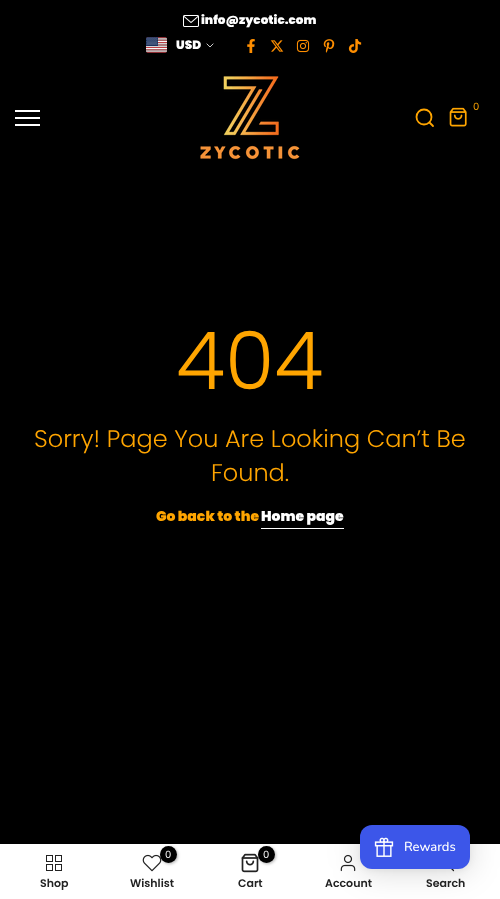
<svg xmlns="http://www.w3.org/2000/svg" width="500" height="899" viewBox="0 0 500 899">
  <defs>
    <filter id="blur1" x="-50%" y="-200%" width="200%" height="500%"><feGaussianBlur stdDeviation="16"/></filter>
    <filter id="blur2" x="-50%" y="-200%" width="200%" height="500%"><feGaussianBlur stdDeviation="3"/></filter>
    <filter id="blur3" x="-50%" y="-200%" width="200%" height="500%"><feGaussianBlur stdDeviation="1.5"/></filter>
  </defs>
  <rect width="100%" height="100%" fill="#000000"/>
  <image x="183" y="15" width="16" height="12" href="img1.png"/>
  <text x="201" y="24" font-family="Poppins" font-size="12" font-weight="900" fill="#ffffff">info@zycotic.com</text>
  <image x="146" y="37" width="21" height="16" href="img2.png"/>
  <text x="176" y="49" font-family="Poppins" font-size="12" font-weight="900" fill="#ffffff">USD</text>
  <path d="M213 44L210 47L207 44" fill="none" stroke="#ffffff" stroke-width="0.8" stroke-linecap="square"/>
  <image x="247" y="39" width="8" height="14" href="img3.png"/>
  <image x="270" y="40" width="14" height="12" href="img4.png"/>
  <image x="296" y="39" width="14" height="14" href="img5.png"/>
  <image x="323" y="39" width="12" height="14" href="img6.png"/>
  <image x="348" y="39" width="14" height="14" href="img7.png"/>
  <image x="200" y="76" width="100" height="84" href="img8.png"/>
  <text x="473" y="110" font-family="Poppins" font-size="10" fill="#ffa500">0</text>
  <image x="449" y="107" width="18" height="20" href="img9.png"/>
  <circle cx="424" cy="117" r="7.5" fill="none" stroke="#ffa500" stroke-width="1.8"/>
  <path d="M433 126L429.5 122.5" fill="none" stroke="#ffa500" stroke-width="1.8" stroke-linecap="round" stroke-linejoin="round"/>
  <rect x="15" y="110" width="25" height="2" fill="#ffffff"/>
  <rect x="15" y="117" width="25" height="2" fill="#ffffff"/>
  <rect x="15" y="124" width="25" height="2" fill="#ffffff"/>
  <text x="176" y="389" font-family="Poppins" font-size="80" font-weight="300" fill="#ffa500">404</text>
  <text x="34" y="447" font-family="Poppins" font-size="24" font-weight="300" fill="#ffa500">Sorry! Page You Are Looking Can’t Be</text>
  <text x="211" y="481" font-family="Poppins" font-size="24" font-weight="300" fill="#ffa500">Found.</text>
  <text x="156" y="521" font-family="Poppins" font-size="14" font-weight="900" fill="#ffa500">Go back to the</text>
  <text x="261" y="521" font-family="Poppins" font-size="14" font-weight="900" fill="#ffffff">Home page</text>
  <rect x="261" y="528" width="83" height="1" fill="#ffffff"/>
  <rect x="0" y="844" width="500" height="55" fill="#ffffff"/>
  <image x="340" y="854" width="16" height="18" href="img14.png"/>
  <circle cx="445" cy="862" r="6.5" fill="none" stroke="#222222" stroke-width="1.2"/>
  <path d="M453.5 870.5L450 867" fill="none" stroke="#222222" stroke-width="1.2" stroke-linecap="round" stroke-linejoin="round"/>
  <rect x="360" y="827" width="110" height="44" rx="12" fill="#000000" fill-opacity="0.16" filter="url(#blur1)"/>
  <rect x="360" y="826" width="110" height="44" rx="12" fill="#000000" fill-opacity="0.06" filter="url(#blur2)"/>
  <rect x="360" y="825" width="110" height="44" rx="12" fill="#3c56e9"/>
  <image x="374" y="837" width="20" height="20" href="img10.png"/>
  <text x="404" y="851" font-family="Nunito" font-size="13" font-weight="500" fill="#ffffff">Rewards</text>
  <image x="46" y="855" width="16" height="16" href="img11.png"/>
  <text x="40" y="887" font-family="Poppins" font-size="11" font-weight="600" fill="#222222">Shop</text>
  <image x="142" y="854" width="20" height="18" href="img12.png"/>
  <rect x="161" y="847" width="17" height="17" rx="8.5" fill="#000000" fill-opacity="0.3" filter="url(#blur3)"/>
  <circle cx="168.5" cy="854.5" r="8.5" fill="#000000"/>
  <text x="165" y="858" font-family="Poppins" font-size="10" fill="#ffffff">0</text>
  <text x="130" y="887" font-family="Poppins" font-size="11" font-weight="600" fill="#222222">Wishlist</text>
  <image x="241" y="853" width="18" height="20" href="img13.png"/>
  <rect x="259" y="847" width="17" height="17" rx="8.5" fill="#000000" fill-opacity="0.3" filter="url(#blur3)"/>
  <circle cx="266.5" cy="854.5" r="8.5" fill="#000000"/>
  <text x="263" y="858" font-family="Poppins" font-size="10" fill="#ffffff">0</text>
  <text x="238" y="887" font-family="Poppins" font-size="11" font-weight="600" fill="#222222">Cart</text>
  <text x="325" y="887" font-family="Poppins" font-size="11" font-weight="600" fill="#222222">Account</text>
  <text x="426" y="887" font-family="Poppins" font-size="11" font-weight="600" fill="#222222">Search</text>
</svg>
